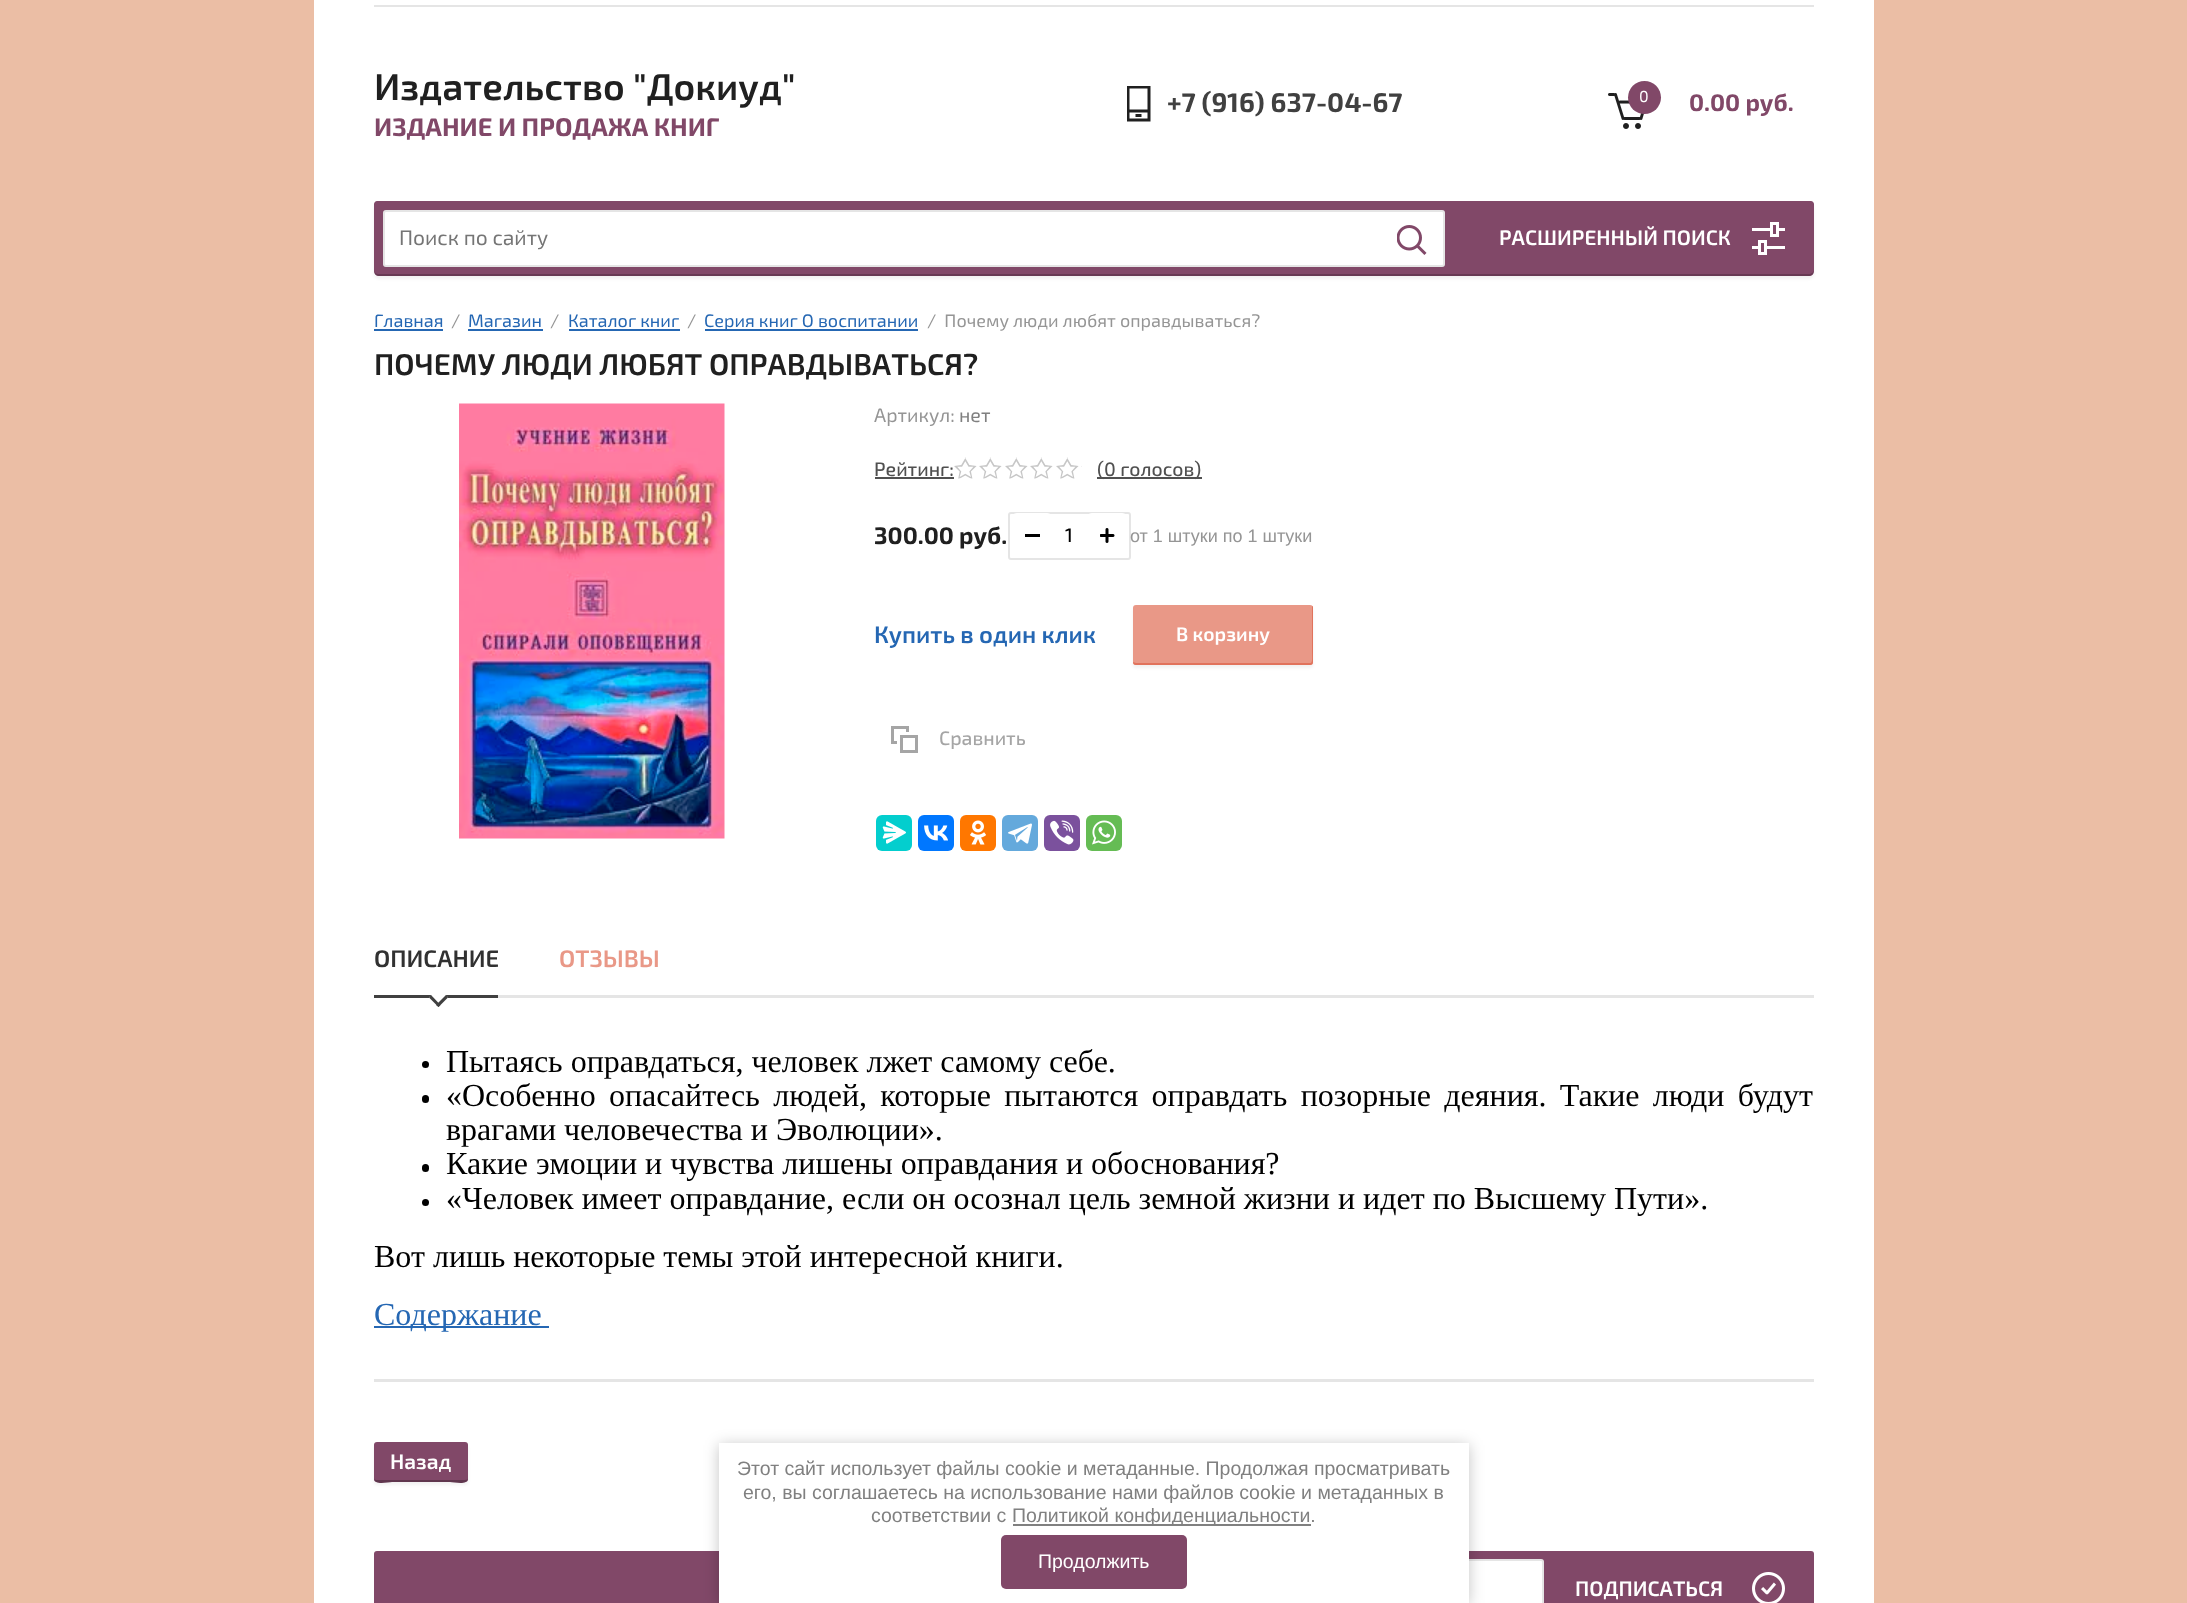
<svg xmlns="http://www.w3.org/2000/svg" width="2187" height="1603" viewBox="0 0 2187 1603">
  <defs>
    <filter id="blur1" x="-50%" y="-200%" width="200%" height="500%"><feGaussianBlur stdDeviation="1.5"/></filter>
    <filter id="blur2" x="-50%" y="-200%" width="200%" height="500%"><feGaussianBlur stdDeviation="7.5"/></filter>
  </defs>
  <rect width="100%" height="100%" fill="#ebbea5"/>
  <rect x="314" y="0" width="1560" height="1603" fill="#ffffff"/>
  <rect x="374" y="5" width="1440" height="2" fill="#e5e5e5"/>
  <text x="374" y="100" font-family="'Exo 2'" font-size="37.5" font-weight="600" fill="#202020">Издательство "Докиуд"</text>
  <text x="374" y="136" font-family="'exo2'" font-size="25.5" font-weight="bold" fill="#814868">ИЗДАНИЕ И ПРОДАЖА КНИГ</text>
  <image x="1127" y="86" width="24" height="36" href="img1.png"/>
  <text x="1167" y="112" font-family="'exo2'" font-size="27" font-weight="bold" fill="#404040">+7 (916) 637-04-67</text>
  <image x="1608" y="93" width="36" height="36" href="img2.png"/>
  <circle cx="1644.5" cy="97.5" r="16.5" fill="#814868"/>
  <text x="1639" y="102" font-family="'exo2'" font-size="16" fill="#ffffff">0</text>
  <text x="1689" y="111" font-family="'exo2'" font-size="24" font-weight="bold" fill="#814868">0.00 руб.</text>
  <rect x="374" y="204" width="1440" height="75" rx="5" fill="#000000" fill-opacity="0.05" filter="url(#blur1)"/>
  <path d="M377 201H1811C1812.5 201 1814 202.5 1814 204V271C1814 274 1812 276 1809 276H379C376 276 374 274 374 271V204C374 202.5 375.5 201 377 201Z" fill="#814868"/>
  <path d="M374 270C374 273 376 276 379 276H1809C1812 276 1814 273 1814 270C1814 272 1811 274 1809 274H378C376 274 374 272 374 270Z" fill="#000000" fill-opacity="0.2"/>
  <rect x="383" y="210" width="1062" height="57" rx="3" fill="#ffffff"/>
  <rect x="384" y="211" width="1060" height="55" rx="2" fill="none" stroke="#000000" stroke-opacity="0.1" stroke-width="2"/>
  <text x="399" y="245" font-family="'exo2'" font-size="21" fill="#757575">Поиск по сайту</text>
  <image x="1397" y="225" width="30" height="30" href="img3.png"/>
  <text x="1499" y="245" font-family="'Exo 2'" font-size="21" font-weight="600" fill="#ffffff">РАСШИРЕННЫЙ ПОИСК</text>
  <image x="1752" y="222" width="33" height="33" href="img4.png"/>
  <text x="374" y="327" font-family="'exo2'" font-size="18" fill="#2567b3">Главная</text>
  <rect x="374" y="329" width="69" height="2" fill="#2567b3"/>
  <text x="451" y="327" font-family="'exo2'" font-size="18" fill="#959595">/</text>
  <text x="468" y="327" font-family="'exo2'" font-size="18" fill="#2567b3">Магазин</text>
  <rect x="468" y="329" width="75" height="2" fill="#2567b3"/>
  <text x="550" y="327" font-family="'exo2'" font-size="18" fill="#959595">/</text>
  <text x="568" y="327" font-family="'exo2'" font-size="18" fill="#2567b3">Каталог книг</text>
  <rect x="569" y="329" width="111" height="2" fill="#2567b3"/>
  <text x="687" y="327" font-family="'exo2'" font-size="18" fill="#959595">/</text>
  <rect x="705" y="329" width="213" height="2" fill="#2567b3"/>
  <text x="704" y="327" font-family="'exo2'" font-size="18" fill="#2567b3">Серия книг О воспитании</text>
  <text x="927" y="327" font-family="'exo2'" font-size="18" fill="#959595" xml:space="preserve">/  Почему люди любят оправдываться?</text>
  <text x="374" y="375" font-family="'Exo 2'" font-size="30" font-weight="600" fill="#202020">ПОЧЕМУ ЛЮДИ ЛЮБЯТ ОПРАВДЫВАТЬСЯ?</text>
  <image x="459" y="403" width="266" height="436" href="img5.png"/>
  <text x="874" y="422" font-family="'exo2'" font-size="19.5" fill="#959595">Артикул:</text>
  <text x="959" y="422" font-family="'exo2'" font-size="19.5" fill="#808080">нет</text>
  <text x="874" y="476" font-family="'Exo 2'" font-size="19.5" font-weight="500" fill="#505050">Рейтинг:</text>
  <rect x="875" y="477" width="79" height="2" fill="#505050"/>
  <image x="954" y="457" width="128" height="22" href="img6.png"/>
  <rect x="1097" y="477" width="105" height="2" fill="#505050"/>
  <text x="1097" y="476" font-family="'Exo 2'" font-size="19.5" font-weight="500" fill="#505050">(0 голосов)</text>
  <text x="874" y="544" font-family="'exo2'" font-size="24" font-weight="bold" fill="#202020">300.00 руб.</text>
  <rect x="1009" y="513" width="121" height="46" rx="2" fill="none" stroke="#e5e5e5" stroke-width="2"/>
  <rect x="1011" y="513" width="42" height="45" rx="6" fill="#ffffff"/>
  <rect x="1025" y="534" width="15" height="3" fill="#000000"/>
  <text x="1065" y="542" font-family="'Exo 2'" font-size="19.5" font-weight="500" fill="#000000">1</text>
  <rect x="1086" y="513" width="42" height="45" rx="6" fill="#ffffff"/>
  <image x="1100" y="528" width="15" height="15" href="img7.png"/>
  <text x="1130" y="542" font-family="Liberation Sans" font-size="18" fill="#959595">от 1 штуки по 1 штуки</text>
  <text x="874" y="643" font-family="'Exo 2'" font-size="24" font-weight="600" fill="#2567b3">Купить в один клик</text>
  <rect x="1133" y="608" width="180" height="60" rx="3" fill="#000000" fill-opacity="0.05" filter="url(#blur1)"/>
  <rect x="1133" y="605" width="180" height="60" rx="3" fill="#e99887"/>
  <path d="M1133 662C1133 664 1134 665 1136 665H1310C1312 665 1313 664 1313 662V608C1313 607 1313 606 1312 606V651C1312 656 1313 663 1310 663H1136Z" fill="#e1735c"/>
  <text x="1176" y="641" font-family="'Exo 2'" font-size="19.5" font-weight="600" fill="#ffffff">В корзину</text>
  <image x="891" y="726" width="27" height="27" href="img8.png"/>
  <text x="939" y="745" font-family="'Exo 2'" font-size="19.5" font-weight="500" fill="#a5a5a5">Сравнить</text>
  <rect x="876" y="815" width="36" height="36" rx="6" fill="#03cece"/>
  <image x="882" y="821" width="24" height="23" href="img9.png"/>
  <rect x="918" y="815" width="36" height="36" rx="6" fill="#0077ff"/>
  <image x="924" y="825" width="24" height="16" href="img10.png"/>
  <rect x="960" y="815" width="36" height="36" rx="6" fill="#ff7700"/>
  <image x="970" y="820" width="16" height="25" href="img11.png"/>
  <rect x="1002" y="815" width="36" height="36" rx="6" fill="#64a9dc"/>
  <image x="1008" y="823" width="24" height="21" href="img12.png"/>
  <rect x="1044" y="815" width="36" height="36" rx="6" fill="#7b519d"/>
  <image x="1050" y="820" width="24" height="25" href="img13.png"/>
  <rect x="1086" y="815" width="36" height="36" rx="6" fill="#65bc54"/>
  <image x="1092" y="820" width="24" height="25" href="img14.png"/>
  <rect x="498" y="995" width="1316" height="3" fill="#e5e5e5"/>
  <rect x="374" y="995" width="124" height="3" fill="#404040"/>
  <text x="374" y="967" font-family="'Exo 2'" font-size="24" font-weight="600" fill="#313131">ОПИСАНИЕ</text>
  <path d="M438.5 1007L429 997.5L438.5 988L448 997.5Z" fill="#ffffff"/>
  <path d="M438.5 1007L429 997.5L431 995L440.5 1005Z" fill="#404040"/>
  <path d="M438.5 1007L436 1005L446 995L448 997.5Z" fill="#404040"/>
  <text x="559" y="967" font-family="'Exo 2'" font-size="24" font-weight="600" fill="#e99887">ОТЗЫВЫ</text>
  <rect x="374" y="1379" width="1440" height="3" fill="#e5e5e5"/>
  <circle cx="425.5" cy="1064.5" r="3.5" fill="#000000"/>
  <text x="446" y="1072" font-family="Liberation Serif" font-size="32" fill="#000000">Пытаясь оправдаться, человек лжет самому себе.</text>
  <rect x="422" y="1095" width="7" height="8" rx="3.5" fill="#000000"/>
  <text x="446" y="1106" word-spacing="5.25" font-family="Liberation Serif" font-size="32" fill="#000000">«Особенно опасайтесь людей, которые пытаются оправдать позорные деяния. Такие люди будут</text>
  <text x="446" y="1140" font-family="Liberation Serif" font-size="32" fill="#000000">врагами человечества и Эволюции».</text>
  <rect x="422" y="1164" width="7" height="8" rx="3.5" fill="#000000"/>
  <text x="446" y="1174" font-family="Liberation Serif" font-size="32" fill="#000000">Какие эмоции и чувства лишены оправдания и обоснования?</text>
  <circle cx="425.5" cy="1202.5" r="3.5" fill="#000000"/>
  <text x="446" y="1209" font-family="Liberation Serif" font-size="32" fill="#000000">«Человек имеет оправдание, если он осознал цель земной жизни и идет по Высшему Пути».</text>
  <text x="374" y="1267" font-family="Liberation Serif" font-size="32" fill="#000000">Вот лишь некоторые темы этой интересной книги.</text>
  <rect x="374" y="1326" width="175" height="2" fill="#2567b3"/>
  <text x="374" y="1325" font-family="Liberation Serif" font-size="32" fill="#2567b3">Содержание</text>
  <rect x="374" y="1445" width="94" height="40" rx="3" fill="#000000" fill-opacity="0.05" filter="url(#blur1)"/>
  <rect x="374" y="1442" width="94" height="40" rx="3" fill="#814868"/>
  <path d="M374 1478C374 1486 388 1482 392 1482H450C454 1482 468 1486 468 1478C468 1479 467 1480 465 1480H376C375 1480 374 1479 374 1478Z" fill="#60364e"/>
  <text x="390" y="1469" font-family="'Exo 2'" font-size="21" font-weight="600" fill="#ffffff">Назад</text>
  <rect x="374" y="1551" width="1440" height="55" rx="3" fill="#814868"/>
  <rect x="1005" y="1559" width="539" height="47" rx="3" fill="#ffffff"/>
  <rect x="1006" y="1560" width="537" height="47" rx="2" fill="none" stroke="#000000" stroke-opacity="0.1" stroke-width="2"/>
  <image x="1752" y="1572" width="33" height="31" href="img15.png"/>
  <text x="1575" y="1596" font-family="'Exo 2'" font-size="21" font-weight="600" fill="#ffffff">ПОДПИСАТЬСЯ</text>
  <rect x="719" y="1445" width="750" height="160" fill="#000000" fill-opacity="0.23" filter="url(#blur2)"/>
  <rect x="719" y="1443" width="750" height="160" fill="#ffffff"/>
  <text x="737" y="1475" font-family="Liberation Sans" font-size="19.5" fill="#808080">Этот сайт использует файлы cookie и метаданные. Продолжая просматривать</text>
  <text x="743" y="1499" font-family="Liberation Sans" font-size="19.5" fill="#808080">его, вы соглашаетесь на использование нами файлов cookie и метаданных в</text>
  <text x="871" y="1522" font-family="Liberation Sans" font-size="19.5" fill="#808080">соответствии с</text>
  <rect x="1013" y="1524" width="298" height="2" fill="#808080"/>
  <text x="1012" y="1522" font-family="Liberation Sans" font-size="19.5" fill="#808080">Политикой конфиденциальности.</text>
  <rect x="1001" y="1535" width="186" height="54" rx="5" fill="#814868"/>
  <text x="1038" y="1568" font-family="Liberation Sans" font-size="19.5" fill="#ffffff">Продолжить</text>
</svg>
